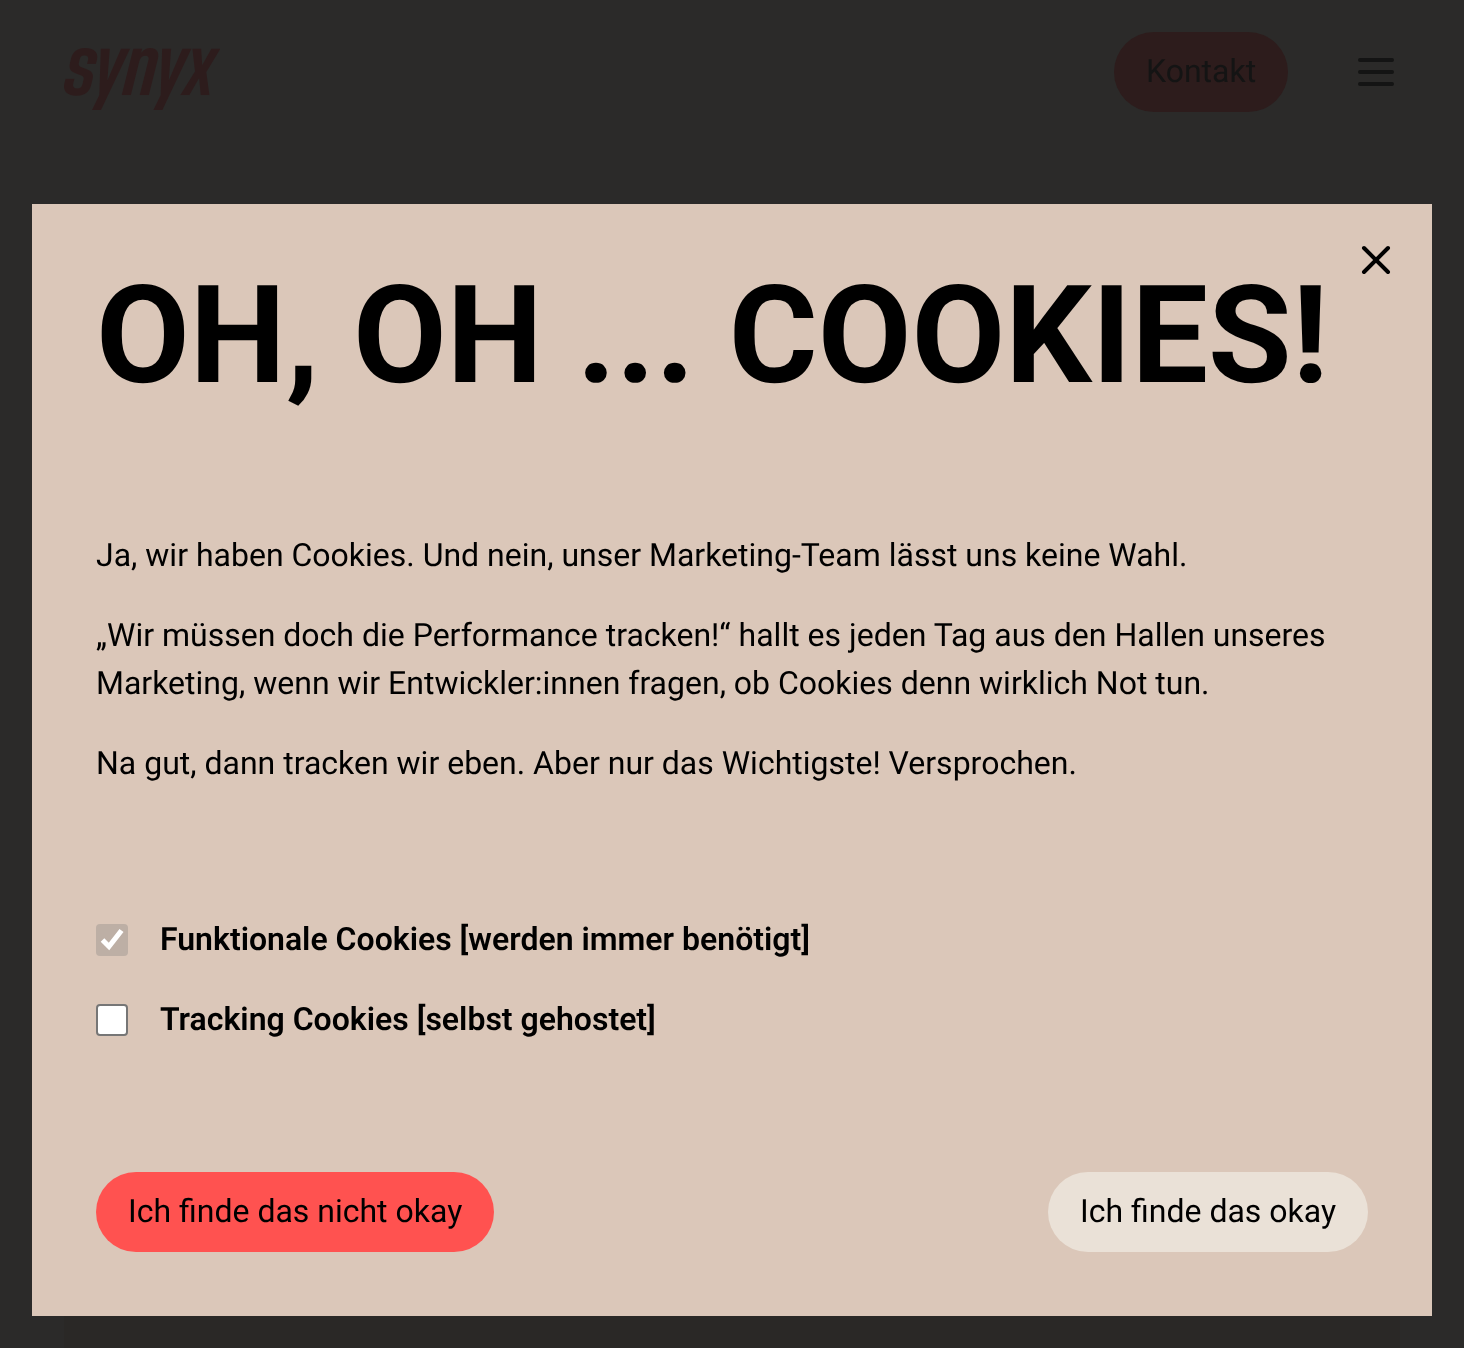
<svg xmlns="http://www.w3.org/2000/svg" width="1464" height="1348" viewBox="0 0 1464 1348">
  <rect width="100%" height="100%" fill="#2b2a29"/>
  <image x="64" y="48" width="156" height="62" href="img1.png"/>
  <rect x="1114" y="32" width="174" height="80" rx="40" fill="#2d1c1c"/>
  <text x="1146" y="82" font-family="Roboto" font-size="32" fill="#141414">Kontakt</text>
  <path d="M1360 60H1392M1360 72H1392M1360 84H1392" fill="none" stroke="#141414" stroke-width="4" stroke-linecap="round" stroke-linejoin="round"/>
  <rect x="32" y="204" width="1400" height="1112" fill="#dbc7b9"/>
  <path d="M1388 248L1364 272M1364 248L1388 272" fill="none" stroke="#000000" stroke-width="4" stroke-linecap="round" stroke-linejoin="round"/>
  <text x="96" y="382" font-family="Roboto" font-size="136" font-weight="bold" fill="#000000">OH, OH ... COOKIES!</text>
  <text x="96" y="566" font-family="Roboto" font-size="32" fill="#000000">Ja, wir haben Cookies. Und nein, unser Marketing-Team lässt uns keine Wahl.</text>
  <text x="96" y="646" font-family="Roboto" font-size="32" fill="#000000">„Wir müssen doch die Performance tracken!“ hallt es jeden Tag aus den Hallen unseres</text>
  <text x="96" y="694" font-family="Roboto" font-size="32" fill="#000000">Marketing, wenn wir Entwickler:innen fragen, ob Cookies denn wirklich Not tun.</text>
  <text x="96" y="774" font-family="Roboto" font-size="32" fill="#000000">Na gut, dann tracken wir eben. Aber nur das Wichtigste! Versprochen.</text>
  <rect x="96" y="924" width="32" height="32" rx="4" fill="#bdafa5"/>
  <path d="M102.5 940L109 946.5L121.5 930.5" fill="none" stroke="#ffffff" stroke-width="5.1"/>
  <text x="160" y="950" font-family="Roboto" font-size="32" font-weight="600" fill="#000000">Funktionale Cookies [werden immer benötigt]</text>
  <rect x="97" y="1005" width="30" height="30" rx="3" fill="#ffffff" stroke="#767676" stroke-width="2"/>
  <text x="160" y="1030" font-family="Roboto" font-size="32" font-weight="600" fill="#000000">Tracking Cookies [selbst gehostet]</text>
  <rect x="96" y="1172" width="398" height="80" rx="40" fill="#ff5250"/>
  <text x="128" y="1222" font-family="Roboto" font-size="32" fill="#000000">Ich finde das nicht okay</text>
  <rect x="1048" y="1172" width="320" height="80" rx="40" fill="#eae1d7"/>
  <text x="1080" y="1222" font-family="Roboto" font-size="32" fill="#000000">Ich finde das okay</text>
  <rect x="64" y="1316" width="1336" height="32" fill="#2a2826"/>
</svg>
